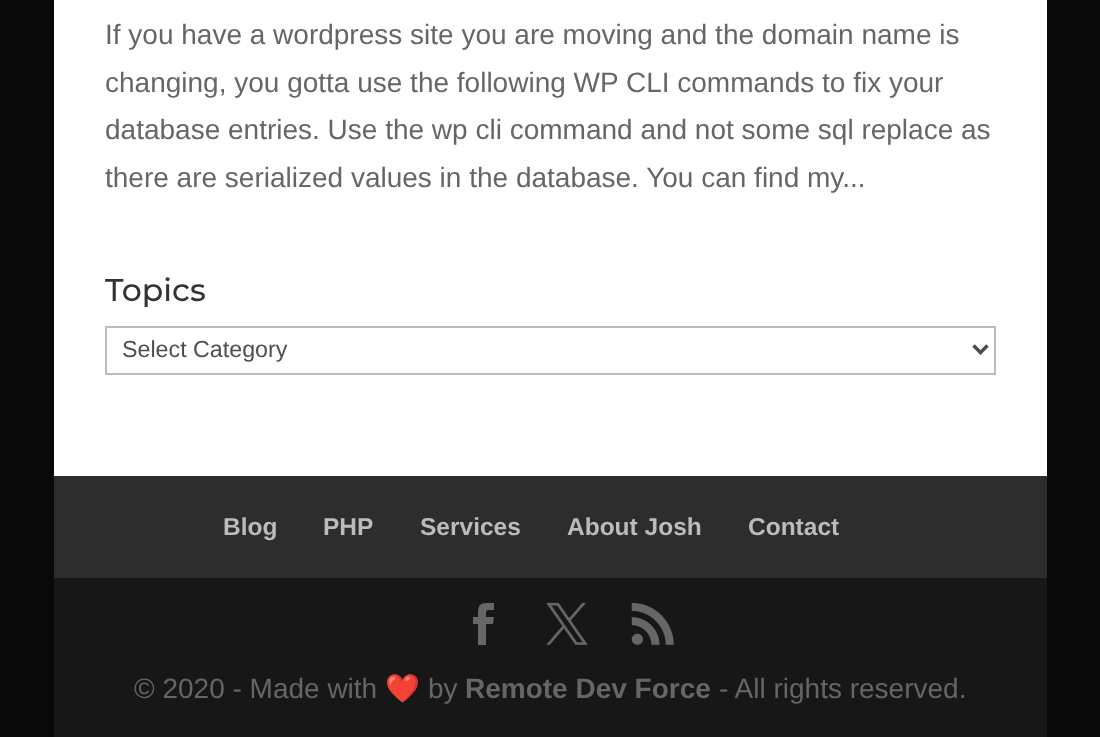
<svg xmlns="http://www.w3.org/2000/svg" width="1100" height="737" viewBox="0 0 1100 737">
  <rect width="100%" height="100%" fill="#0a0909"/>
  <rect x="54" y="0" width="993" height="476" fill="#ffffff"/>
  <text x="105" y="44" font-family="Liberation Sans" font-size="28" fill="#666666">If you have a wordpress site you are moving and the domain name is</text>
  <text x="105" y="92" font-family="Liberation Sans" font-size="28" fill="#666666">changing, you gotta use the following WP CLI commands to fix your</text>
  <text x="105" y="139" font-family="Liberation Sans" font-size="28" fill="#666666">database entries. Use the wp cli command and not some sql replace as</text>
  <text x="105" y="187" font-family="Liberation Sans" font-size="28" fill="#666666">there are serialized values in the database. You can find my...</text>
  <text x="105" y="301" font-family="Montserrat" font-size="31.5" font-weight="500" fill="#333333">Topics</text>
  <rect x="106" y="327" width="889" height="47" fill="none" stroke="#bbbbbb" stroke-width="2"/>
  <path d="M973.5 345.5L980.5 352.5L987.5 345.5" fill="none" stroke="#4e4e4e" stroke-width="3.5"/>
  <text x="122" y="357" font-family="Liberation Sans" font-size="23.25" fill="#4e4e4e">Select Category</text>
  <rect x="54" y="476" width="993" height="102" fill="#2d2d2d"/>
  <text x="223" y="535" font-family="Liberation Sans" font-size="24.5" font-weight="bold" fill="#bbbbbb">Blog</text>
  <text x="323" y="535" font-family="Liberation Sans" font-size="24.5" font-weight="bold" fill="#bbbbbb">PHP</text>
  <text x="420" y="535" font-family="Liberation Sans" font-size="24.5" font-weight="bold" fill="#bbbbbb">Services</text>
  <text x="567" y="535" font-family="Liberation Sans" font-size="24.5" font-weight="bold" fill="#bbbbbb">About Josh</text>
  <text x="748" y="535" font-family="Liberation Sans" font-size="24.5" font-weight="bold" fill="#bbbbbb">Contact</text>
  <rect x="54" y="578" width="993" height="159" fill="#171717"/>
  <path d="M478 645H486V624H493L494 617H486C486 609 486 610 494 610V603C480 603 478 602 478 617H473V624H478Z" fill="#666666"/>
  <image x="546" y="602" width="42" height="43" href="img1.png"/>
  <image x="631" y="602" width="43" height="43" href="img2.png"/>
  <text x="134" y="698" font-family="Liberation Sans" font-size="28" fill="#666666">© 2020 - Made with</text>
  <text x="385" y="698" font-family="Noto Color Emoji" font-size="28" fill="#666666">❤️</text>
  <text x="428" y="698" font-family="Liberation Sans" font-size="28" fill="#666666">by</text>
  <text x="465" y="698" font-family="Liberation Sans" font-size="28" font-weight="bold" fill="#666666">Remote Dev Force</text>
  <text x="719" y="698" font-family="Liberation Sans" font-size="28" fill="#666666">- All rights reserved.</text>
</svg>
